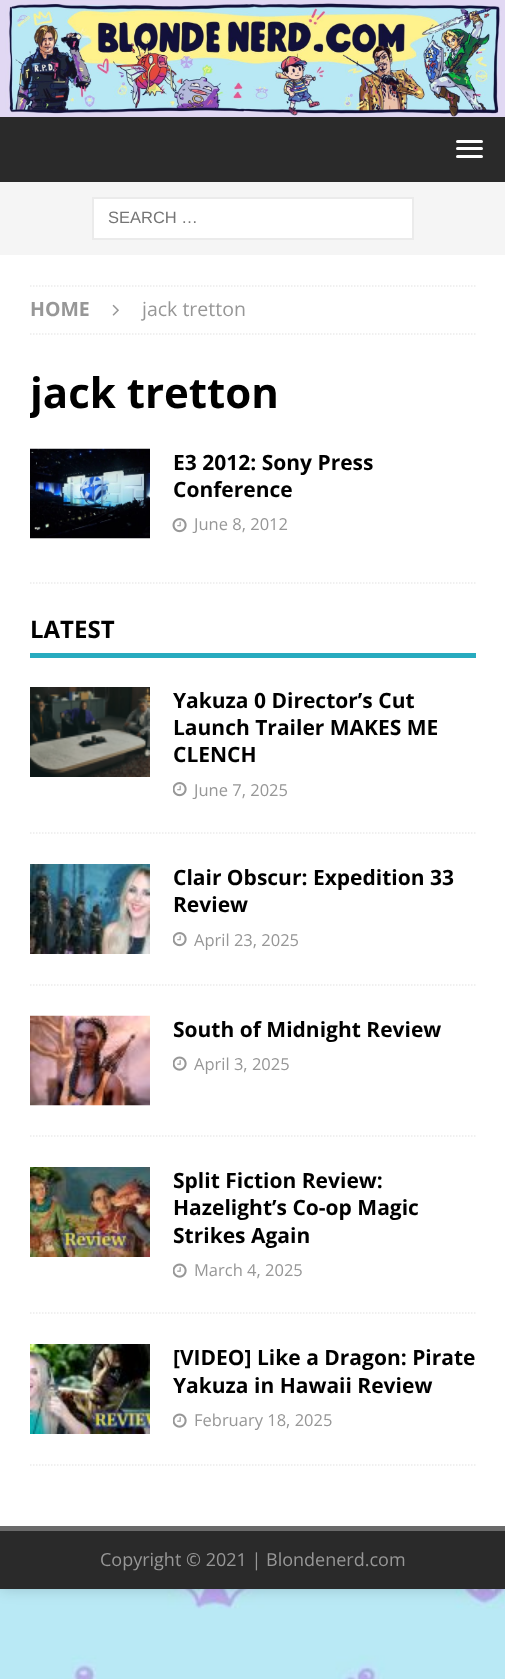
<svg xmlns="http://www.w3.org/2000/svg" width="505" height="1679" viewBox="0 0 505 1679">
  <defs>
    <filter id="blur1" x="-50%" y="-200%" width="200%" height="500%"><feGaussianBlur stdDeviation="7.5"/></filter>
    <clipPath id="clip1"><rect x="30" y="285" width="446" height="299"/></clipPath>
  </defs>
  <rect width="100%" height="100%" fill="#ffffff"/>
  <image x="0" y="1589" width="505" height="90" href="img1.png"/>
  <rect x="0" y="0" width="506" height="1589" fill="#323232" fill-opacity="0.17" filter="url(#blur1)"/>
  <image x="0" y="0" width="505" height="117" href="img2.png"/>
  <rect x="0" y="117" width="505" height="65" fill="#2a2a2a"/>
  <rect x="456" y="140" width="27" height="3" rx="1.5" fill="#ffffff"/>
  <rect x="456" y="147" width="27" height="3" rx="1.5" fill="#ffffff"/>
  <rect x="456" y="155" width="27" height="3" rx="1.5" fill="#ffffff"/>
  <rect x="0" y="182" width="505" height="73" fill="#f5f5f5"/>
  <rect x="93" y="198" width="320" height="41" fill="#ffffff" stroke="#ebebeb" stroke-width="2"/>
  <text x="108" y="223" font-family="Liberation Sans" font-size="16.5" fill="#757575">SEARCH …</text>
  <rect x="0" y="255" width="505" height="1271" fill="#ffffff"/>
  <path d="M30 286H475.5" fill="none" stroke="#ebebeb" stroke-width="1.5" stroke-dasharray="1.5 1.5"/>
  <path d="M30 334H475.5" fill="none" stroke="#ebebeb" stroke-width="1.5" stroke-dasharray="1.5 1.5"/>
  <text x="30" y="316" font-family="Open Sans" font-size="19.5" font-weight="bold" fill="#979797">HOME</text>
  <image x="112" y="304" width="7" height="12" href="img3.png"/>
  <text x="142" y="316" font-family="Open Sans" font-size="19.5" fill="#979797">jack tretton</text>
  <g clip-path="url(#clip1)">
    <text x="30" y="408" font-family="Open Sans" font-size="42" font-weight="bold" fill="#000000">jack tretton</text>
  </g>
  <path d="M30 583H475.5" fill="none" stroke="#ebebeb" stroke-width="1.5" stroke-dasharray="1.5 1.5"/>
  <image x="30" y="448" width="120" height="91" href="img4.png"/>
  <text x="173" y="470" font-family="Open Sans" font-size="21" font-weight="bold" fill="#000000">E3 2012: Sony Press</text>
  <text x="173" y="497" font-family="Open Sans" font-size="21" font-weight="bold" fill="#000000">Conference</text>
  <image x="172" y="518" width="15" height="15" href="img5.png"/>
  <text x="194" y="530" font-family="Open Sans" font-size="16.5" fill="#979797">June 8, 2012</text>
  <rect x="30" y="653" width="446" height="5" fill="#28abbf"/>
  <text x="30" y="638" font-family="Open Sans" font-size="24" font-weight="bold" fill="#000000">LATEST</text>
  <path d="M30 833H475.5" fill="none" stroke="#ebebeb" stroke-width="1.5" stroke-dasharray="1.5 1.5"/>
  <image x="30" y="687" width="120" height="90" href="img6.png"/>
  <text x="173" y="708" font-family="Open Sans" font-size="21" font-weight="bold" fill="#000000">Yakuza 0 Director’s Cut</text>
  <text x="173" y="735" font-family="Open Sans" font-size="21" font-weight="bold" fill="#000000">Launch Trailer MAKES ME</text>
  <text x="173" y="762" font-family="Open Sans" font-size="21" font-weight="bold" fill="#000000">CLENCH</text>
  <image x="173" y="782" width="14" height="15" href="img7.png"/>
  <text x="194" y="796" font-family="Open Sans" font-size="16.5" fill="#979797">June 7, 2025</text>
  <path d="M30 985H475.5" fill="none" stroke="#ebebeb" stroke-width="1.5" stroke-dasharray="1.5 1.5"/>
  <image x="30" y="864" width="120" height="90" href="img8.png"/>
  <text x="173" y="885" font-family="Open Sans" font-size="21" font-weight="bold" fill="#000000">Clair Obscur: Expedition 33</text>
  <text x="173" y="912" font-family="Open Sans" font-size="21" font-weight="bold" fill="#000000">Review</text>
  <image x="173" y="932" width="14" height="15" href="img7.png"/>
  <text x="194" y="946" font-family="Open Sans" font-size="16.5" fill="#979797">April 23, 2025</text>
  <path d="M30 1136H475.5" fill="none" stroke="#ebebeb" stroke-width="1.5" stroke-dasharray="1.5 1.5"/>
  <image x="30" y="1015" width="120" height="91" href="img9.png"/>
  <text x="173" y="1037" font-family="Open Sans" font-size="21" font-weight="bold" fill="#000000">South of Midnight Review</text>
  <image x="173" y="1056" width="14" height="15" href="img10.png"/>
  <text x="194" y="1070" font-family="Open Sans" font-size="16.5" fill="#979797">April 3, 2025</text>
  <path d="M30 1313H475.5" fill="none" stroke="#ebebeb" stroke-width="1.5" stroke-dasharray="1.5 1.5"/>
  <image x="30" y="1167" width="120" height="90" href="img11.png"/>
  <text x="173" y="1188" font-family="Open Sans" font-size="21" font-weight="bold" fill="#000000">Split Fiction Review:</text>
  <text x="173" y="1215" font-family="Open Sans" font-size="21" font-weight="bold" fill="#000000">Hazelight’s Co-op Magic</text>
  <text x="173" y="1243" font-family="Open Sans" font-size="21" font-weight="bold" fill="#000000">Strikes Again</text>
  <image x="173" y="1263" width="14" height="15" href="img10.png"/>
  <text x="194" y="1276" font-family="Open Sans" font-size="16.5" fill="#979797">March 4, 2025</text>
  <path d="M30 1465H475.5" fill="none" stroke="#ebebeb" stroke-width="1.5" stroke-dasharray="1.5 1.5"/>
  <image x="30" y="1344" width="120" height="90" href="img12.png"/>
  <text x="173" y="1365" font-family="Open Sans" font-size="21" font-weight="bold" fill="#000000">[VIDEO] Like a Dragon: Pirate</text>
  <text x="173" y="1393" font-family="Open Sans" font-size="21" font-weight="bold" fill="#000000">Yakuza in Hawaii Review</text>
  <image x="173" y="1413" width="14" height="15" href="img10.png"/>
  <text x="194" y="1426" font-family="Open Sans" font-size="16.5" fill="#979797">February 18, 2025</text>
  <rect x="0" y="1531" width="505" height="58" fill="#2a2a2a"/>
  <rect x="0" y="1526" width="505" height="5" fill="#6a6a6a"/>
  <text x="100" y="1566" font-family="Open Sans" font-size="18" fill="#979797">Copyright © 2021 | Blondenerd.com</text>
</svg>
